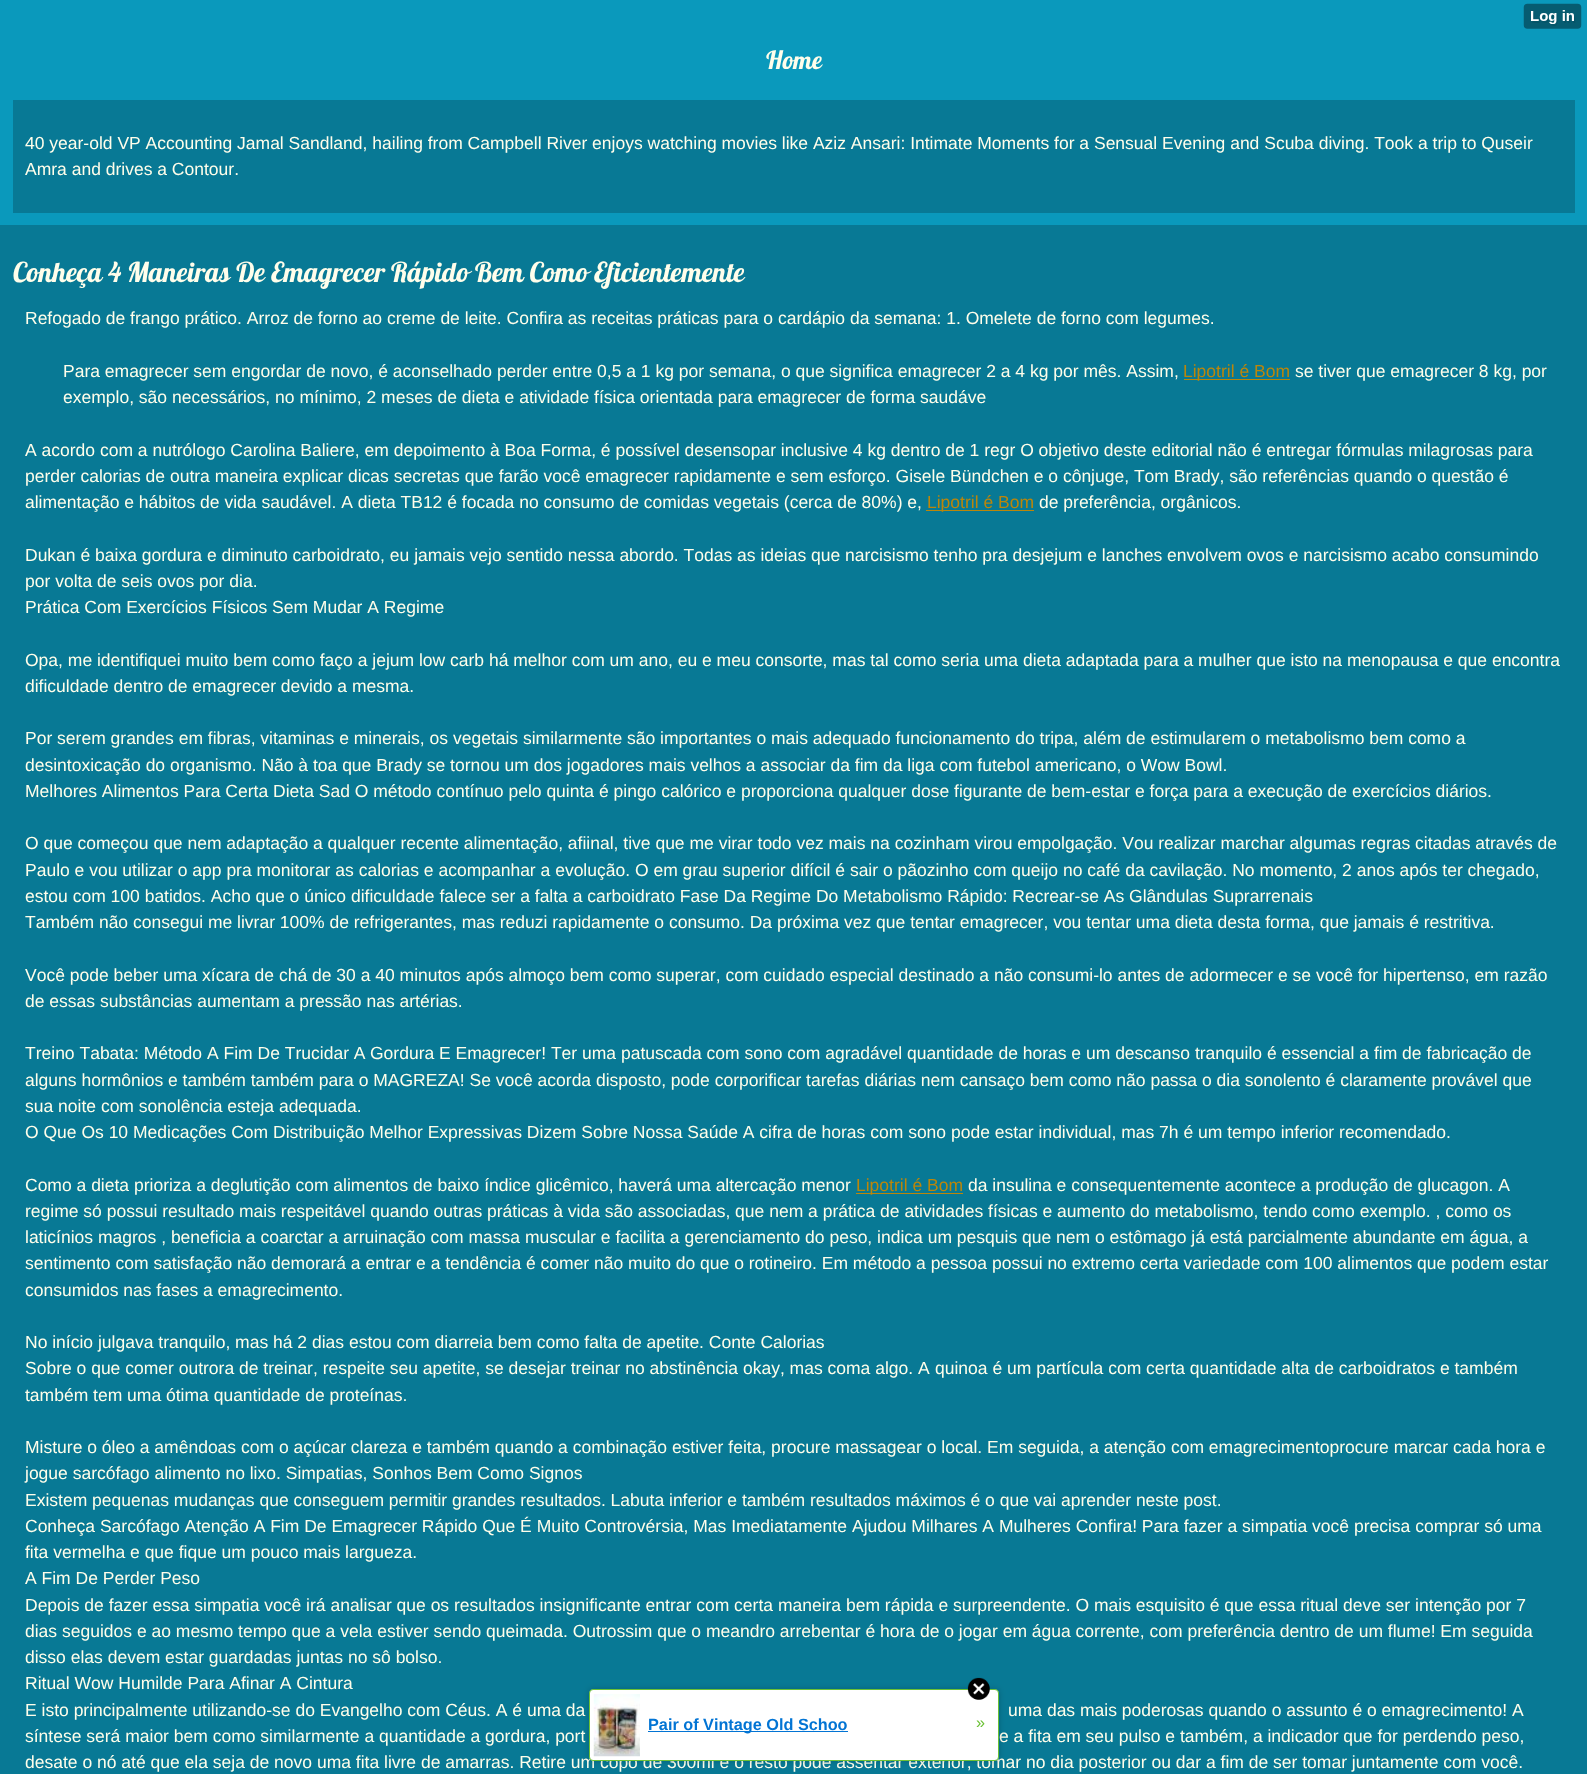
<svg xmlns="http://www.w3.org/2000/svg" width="1587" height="1774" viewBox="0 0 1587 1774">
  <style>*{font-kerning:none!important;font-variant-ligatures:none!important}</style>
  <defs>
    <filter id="blur1" x="-50%" y="-200%" width="200%" height="500%"><feGaussianBlur stdDeviation="3"/></filter>
  </defs>
  <rect width="100%" height="100%" fill="#0a99bc"/>
  <image x="1523" y="3" width="59" height="26" href="img1.png"/>
  <text x="766" y="69" font-family="Lobster" font-size="25" fill="#fffeeb">Home</text>
  <rect x="13" y="100" width="1562" height="113" fill="#087995"/>
  <text x="25" y="149" font-family="Liberation Sans" font-size="17.5" fill="#fffeeb">40 year-old VP Accounting Jamal Sandland, hailing from Campbell River enjoys watching movies like Aziz Ansari: Intimate Moments for a Sensual Evening and Scuba diving. Took</text>
  <text x="1418" y="149" font-family="Liberation Sans" font-size="17.5" fill="#fffeeb">a trip to Quseir</text>
  <text x="25" y="175" font-family="Liberation Sans" font-size="17.5" fill="#fffeeb">Amra and drives a Contour.</text>
  <rect x="0" y="225" width="1587" height="1549" fill="#087995"/>
  <text x="13" y="282" font-family="Lobster" font-size="27.5" fill="#fffeeb">Conheça 4 Maneiras De Emagrecer Rápido Bem Como Eficientemente</text>
  <text x="25" y="324" font-family="Liberation Sans" font-size="17.5" fill="#fffeeb">Refogado de frango prático. Arroz de forno ao creme de leite. Confira as receitas práticas para o cardápio da semana: 1. Omelete de forno com legumes.</text>
  <text x="63" y="377" font-family="Liberation Sans" font-size="17.5" fill="#fffeeb">Para emagrecer sem engordar de novo, é aconselhado perder entre 0,5 a 1 kg por semana, o que significa emagrecer 2 a 4 kg por mês. Assim,</text>
  <rect x="1184" y="379" width="106" height="1" fill="#bc860a"/>
  <text x="1183" y="377" font-family="Liberation Sans" font-size="17.5" fill="#bc860a">Lipotril é Bom</text>
  <text x="1295" y="377" font-family="Liberation Sans" font-size="17.5" fill="#fffeeb">se tiver que emagrecer 8 kg, por</text>
  <text x="63" y="403" font-family="Liberation Sans" font-size="17.5" fill="#fffeeb">exemplo, são necessários, no mínimo, 2 meses de dieta e atividade física orientada para emagrecer de forma saudáve</text>
  <text x="25" y="456" font-family="Liberation Sans" font-size="17.5" fill="#fffeeb">A acordo com a nutrólogo Carolina Baliere, em depoimento à Boa Forma, é possível desensopar inclusive 4 kg dentro de 1 regr O objetivo deste editorial não é entregar fórmulas milagrosas para</text>
  <text x="25" y="482" font-family="Liberation Sans" font-size="17.5" fill="#fffeeb">perder calorias de outra maneira explicar dicas secretas que farão você emagrecer rapidamente e sem esforço. Gisele Bündchen e o cônjuge, Tom Brady, são referências quando o questão é</text>
  <text x="25" y="508" font-family="Liberation Sans" font-size="17.5" fill="#fffeeb">alimentação e hábitos de vida saudável. A dieta TB12 é focada no consumo de comidas vegetais (cerca de 80%) e,</text>
  <rect x="926" y="510" width="108" height="1" fill="#bc860a"/>
  <text x="927" y="508" font-family="Liberation Sans" font-size="17.5" fill="#bc860a">Lipotril é Bom</text>
  <text x="1039" y="508" font-family="Liberation Sans" font-size="17.5" fill="#fffeeb">de preferência, orgânicos.</text>
  <text x="25" y="561" font-family="Liberation Sans" font-size="17.5" fill="#fffeeb">Dukan é baixa gordura e diminuto carboidrato, eu jamais vejo sentido nessa abordo. Todas as ideias que narcisismo tenho pra desjejum e lanches envolvem ovos e narcisismo acabo consumindo</text>
  <text x="25" y="587" font-family="Liberation Sans" font-size="17.5" fill="#fffeeb">por volta de seis ovos por dia.</text>
  <text x="25" y="613" font-family="Liberation Sans" font-size="17.5" fill="#fffeeb">Prática Com Exercícios Físicos Sem Mudar A Regime</text>
  <text x="25" y="666" font-family="Liberation Sans" font-size="17.5" fill="#fffeeb">Opa, me identifiquei muito bem como faço a jejum low carb há melhor com um ano, eu e meu consorte, mas tal como seria uma dieta adaptada para a mulher que isto na menopausa e que encontra</text>
  <text x="25" y="692" font-family="Liberation Sans" font-size="17.5" fill="#fffeeb">dificuldade dentro de emagrecer devido a mesma.</text>
  <text x="25" y="744" font-family="Liberation Sans" font-size="17.5" fill="#fffeeb">Por serem grandes em fibras, vitaminas e minerais, os vegetais similarmente são importantes o mais adequado funcionamento do tripa, além de estimularem o metabolismo bem como a</text>
  <text x="25" y="771" font-family="Liberation Sans" font-size="17.5" fill="#fffeeb">desintoxicação do organismo. Não à toa que Brady se tornou um dos jogadores mais velhos a associar da fim da liga com futebol americano, o Wow Bowl.</text>
  <text x="25" y="797" font-family="Liberation Sans" font-size="17.5" fill="#fffeeb">Melhores Alimentos Para Certa Dieta Sad O método contínuo pelo quinta é pingo calórico e proporciona qualquer dose figurante de bem-estar e força para a execução de exercícios diários.</text>
  <text x="25" y="849" font-family="Liberation Sans" font-size="17.5" fill="#fffeeb">O que começou que nem adaptação a qualquer recente alimentação, afiinal, tive que me virar todo vez mais na cozinham virou empolgação. Vou realizar marchar algumas regras citadas através de</text>
  <text x="25" y="876" font-family="Liberation Sans" font-size="17.5" fill="#fffeeb">Paulo e vou utilizar o app pra monitorar as calorias e acompanhar a evolução. O em grau superior difícil é sair o pãozinho com queijo no café da cavilação. No momento, 2 anos após ter chegado,</text>
  <text x="25" y="902" font-family="Liberation Sans" font-size="17.5" fill="#fffeeb">estou com 100 batidos. Acho que o único dificuldade falece ser a falta a carboidrato Fase Da Regime Do Metabolismo Rápido: Recrear-se As Glândulas Suprarrenais</text>
  <text x="25" y="928" font-family="Liberation Sans" font-size="17.5" fill="#fffeeb">Também não consegui me livrar 100% de refrigerantes, mas reduzi rapidamente o consumo. Da próxima vez que tentar emagrecer, vou tentar uma dieta desta forma, que jamais é restritiva.</text>
  <text x="25" y="981" font-family="Liberation Sans" font-size="17.5" fill="#fffeeb">Você pode beber uma xícara de chá de 30 a 40 minutos após almoço bem como superar, com cuidado especial destinado a não consumi-lo antes de adormecer e se você for hipertenso, em razão</text>
  <text x="25" y="1007" font-family="Liberation Sans" font-size="17.5" fill="#fffeeb">de essas substâncias aumentam a pressão nas artérias.</text>
  <text x="25" y="1059" font-family="Liberation Sans" font-size="17.5" fill="#fffeeb">Treino Tabata: Método</text>
  <text x="207" y="1059" font-family="Liberation Sans" font-size="17.5" fill="#fffeeb">A Fim De Trucidar A</text>
  <text x="370" y="1059" font-family="Liberation Sans" font-size="17.5" fill="#fffeeb">Gordura E Emagrecer! Ter uma patuscada com sono com agradável quantidade de horas e um descanso tranquilo é essencial a fim de fabricação de</text>
  <text x="25" y="1086" font-family="Liberation Sans" font-size="17.5" fill="#fffeeb">alguns hormônios e também também para o MAGREZA! Se você acorda disposto, pode corporificar tarefas diárias nem cansaço bem como não passa o dia sonolento é claramente provável que</text>
  <text x="25" y="1112" font-family="Liberation Sans" font-size="17.5" fill="#fffeeb">sua noite com sonolência esteja adequada.</text>
  <text x="25" y="1138" font-family="Liberation Sans" font-size="17.5" fill="#fffeeb">O Que Os 10 Medicações Com Distribuição Melhor Expressivas Dizem Sobre Nossa Saúde A cifra de horas com sono pode estar individual, mas 7h é um tempo inferior recomendado.</text>
  <text x="25" y="1191" font-family="Liberation Sans" font-size="17.5" fill="#fffeeb">Como a dieta prioriza a deglutição com alimentos de baixo índice glicêmico, haverá uma altercação menor</text>
  <rect x="856" y="1193" width="107" height="1" fill="#bc860a"/>
  <text x="856" y="1191" font-family="Liberation Sans" font-size="17.5" fill="#bc860a">Lipotril é Bom</text>
  <text x="968" y="1191" font-family="Liberation Sans" font-size="17.5" fill="#fffeeb">da insulina e consequentemente acontece a produção de glucagon. A</text>
  <text x="25" y="1217" font-family="Liberation Sans" font-size="17.5" fill="#fffeeb">regime só possui resultado mais respeitável quando outras práticas à vida são associadas, que nem a prática de atividades físicas e aumento do metabolismo, tendo como exemplo. , como os</text>
  <text x="25" y="1243" font-family="Liberation Sans" font-size="17.5" fill="#fffeeb">laticínios magros , beneficia a coarctar a arruinação com massa muscular e facilita a gerenciamento do peso, indica um pesquis que nem o estômago já está parcialmente abundante em água, a</text>
  <text x="25" y="1269" font-family="Liberation Sans" font-size="17.5" fill="#fffeeb">sentimento com satisfação não demorará a entrar e a tendência é comer não muito do que o rotineiro. Em método a pessoa possui no extremo certa variedade com 100 alimentos que podem estar</text>
  <text x="25" y="1296" font-family="Liberation Sans" font-size="17.5" fill="#fffeeb">consumidos nas fases a emagrecimento.</text>
  <text x="25" y="1348" font-family="Liberation Sans" font-size="17.5" fill="#fffeeb">No início julgava tranquilo, mas há 2 dias estou com diarreia bem como falta de apetite. Conte Calorias</text>
  <text x="25" y="1374" font-family="Liberation Sans" font-size="17.5" fill="#fffeeb">Sobre o que comer outrora de treinar, respeite seu apetite, se desejar treinar no abstinência okay, mas coma algo. A</text>
  <text x="935" y="1374" font-family="Liberation Sans" font-size="17.5" fill="#fffeeb">quinoa é um partícula com certa quantidade alta de carboidratos e também</text>
  <text x="25" y="1401" font-family="Liberation Sans" font-size="17.5" fill="#fffeeb">também tem uma ótima quantidade de proteínas.</text>
  <text x="25" y="1453" font-family="Liberation Sans" font-size="17.5" fill="#fffeeb">Misture o óleo a amêndoas com o açúcar clareza e também quando a combinação estiver feita, procure massagear o local. Em seguida, a atenção com emagrecimentoprocure marcar cada hora e</text>
  <text x="25" y="1479" font-family="Liberation Sans" font-size="17.5" fill="#fffeeb">jogue sarcófago alimento no lixo. Simpatias, Sonhos Bem Como Signos</text>
  <text x="25" y="1506" font-family="Liberation Sans" font-size="17.5" fill="#fffeeb">Existem pequenas mudanças que conseguem permitir grandes resultados. Labuta inferior e também resultados máximos é o que vai aprender neste post.</text>
  <text x="25" y="1532" font-family="Liberation Sans" font-size="17.5" fill="#fffeeb">Conheça Sarcófago Atenção A Fim De Emagrecer Rápido Que É Muito Controvérsia, Mas Imediatamente</text>
  <text x="852" y="1532" font-family="Liberation Sans" font-size="17.5" fill="#fffeeb">Ajudou Milhares A Mulheres Confira! Para fazer a simpatia você precisa comprar só uma</text>
  <text x="25" y="1558" font-family="Liberation Sans" font-size="17.5" fill="#fffeeb">fita vermelha e que fique um pouco mais largueza.</text>
  <text x="25" y="1584" font-family="Liberation Sans" font-size="17.5" fill="#fffeeb">A Fim De Perder Peso</text>
  <text x="25" y="1611" font-family="Liberation Sans" font-size="17.5" fill="#fffeeb">Depois de fazer essa simpatia você irá analisar que os resultados insignificante entrar com certa maneira bem rápida e surpreendente. O mais esquisito é que essa ritual deve ser intenção por 7</text>
  <text x="25" y="1637" font-family="Liberation Sans" font-size="17.5" fill="#fffeeb">dias seguidos e ao mesmo tempo que a vela estiver sendo queimada. Outrossim que o meandro arrebentar é hora de o jogar em água corrente, com preferência dentro de um flume! Em seguida</text>
  <text x="25" y="1663" font-family="Liberation Sans" font-size="17.5" fill="#fffeeb">disso elas devem estar guardadas juntas no sô bolso.</text>
  <text x="25" y="1689" font-family="Liberation Sans" font-size="17.5" fill="#fffeeb">Ritual Wow Humilde Para Afinar A Cintura</text>
  <text x="25" y="1716" font-family="Liberation Sans" font-size="17.5" fill="#fffeeb">E isto principalmente utilizando-se do Evangelho com Céus. A é uma da</text>
  <text x="1008" y="1716" font-family="Liberation Sans" font-size="17.5" fill="#fffeeb">uma das mais poderosas quando o assunto é o emagrecimento! A</text>
  <text x="25" y="1742" font-family="Liberation Sans" font-size="17.5" fill="#fffeeb">síntese será maior bem como similarmente a quantidade a gordura, port</text>
  <text x="999" y="1742" font-family="Liberation Sans" font-size="17.5" fill="#fffeeb">e a fita em seu pulso e também, a indicador que for perdendo peso,</text>
  <text x="25" y="1768" font-family="Liberation Sans" font-size="17.5" fill="#fffeeb">desate o nó até que ela seja de novo uma fita livre de amarras. Retire um copo de 300ml e o resto pode assentar exterior, tomar no dia posterior ou dar a fim de ser tomar juntamente com você.</text>
  <rect x="589" y="1689" width="410" height="72" rx="4" fill="#000000" fill-opacity="0.2" filter="url(#blur1)"/>
  <rect x="589.5" y="1689.5" width="409" height="71" rx="3.5" fill="#ffffff" stroke="#6bc135"/>
  <image x="967" y="1677" width="23" height="23" href="img2.png"/>
  <image x="593" y="1694" width="47" height="63" href="img3.png"/>
  <rect x="648" y="1731" width="200" height="1" fill="#0274d4"/>
  <text x="648" y="1730" font-family="Liberation Sans" font-size="16.25" font-weight="bold" fill="#0274d4">Pair of Vintage Old Schoo</text>
  <text x="976" y="1728" font-family="Liberation Sans" font-size="16.25" fill="#6bc135">»</text>
</svg>
